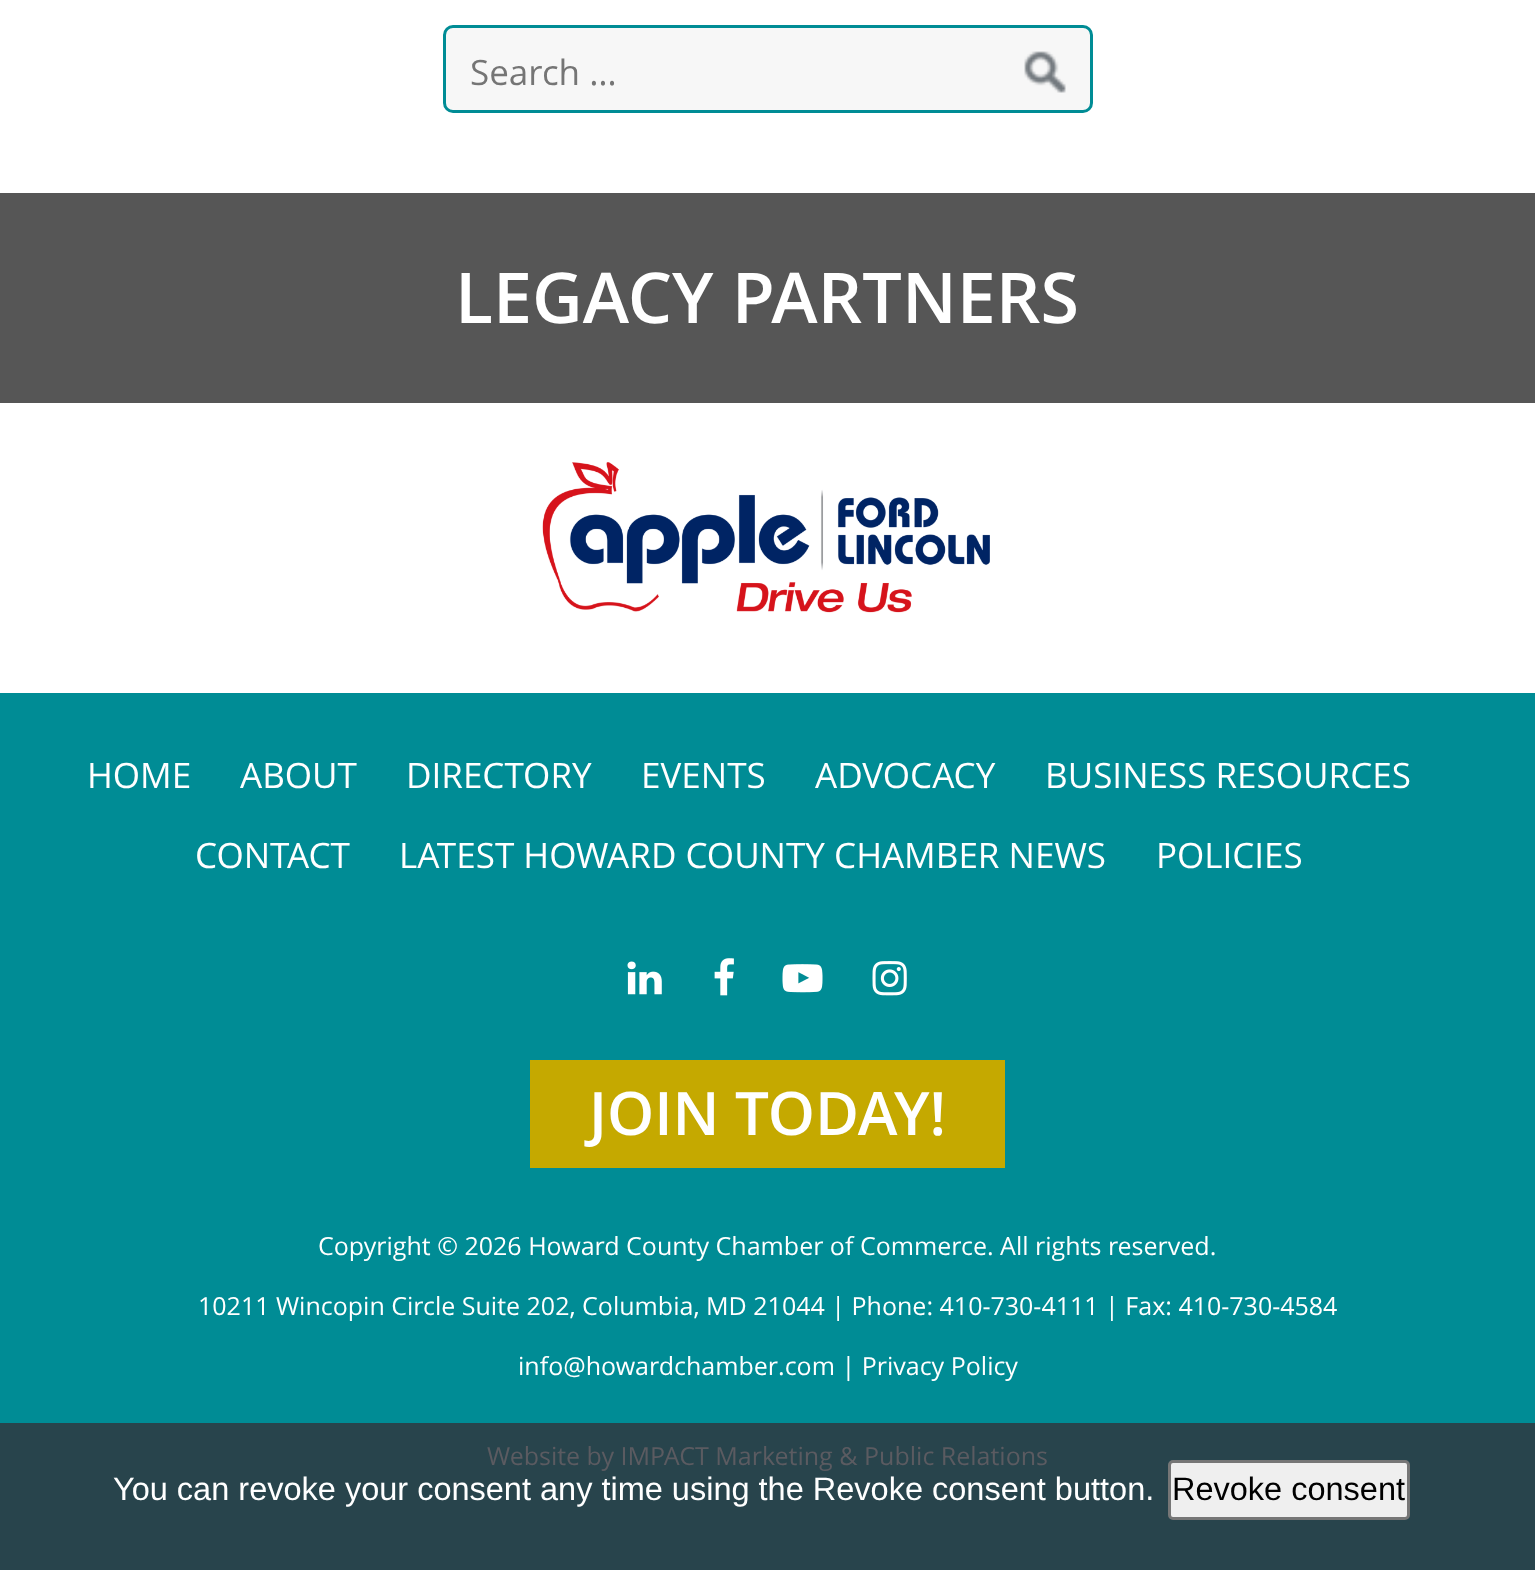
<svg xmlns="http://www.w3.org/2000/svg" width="1535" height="1570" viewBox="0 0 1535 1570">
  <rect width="100%" height="100%" fill="#ffffff"/>
  <rect x="444.5" y="26.5" width="647" height="85" rx="8.5" fill="#f7f7f7" stroke="#008c95" stroke-width="3"/>
  <text x="470" y="85" font-family="Open Sans" font-size="35" fill="#757575">Search …</text>
  <image x="1024" y="51" width="42" height="42" href="img1.png"/>
  <rect x="0" y="193" width="1535" height="210" fill="#565656"/>
  <text x="455" y="323" font-family="Open Sans" font-size="70" font-weight="600" fill="#ffffff">LEGACY PARTNERS</text>
  <image x="542" y="462" width="448" height="151" href="img2.png"/>
  <rect x="0" y="693" width="1535" height="730" fill="#008c95"/>
  <rect x="0" y="1423" width="1535" height="147" fill="#28444c"/>
  <text x="87" y="788" font-family="Open Sans" font-size="35" fill="#ffffff">HOME</text>
  <text x="240" y="788" font-family="Open Sans" font-size="35" fill="#ffffff">ABOUT</text>
  <text x="406" y="788" font-family="Open Sans" font-size="35" fill="#ffffff">DIRECTORY</text>
  <text x="641" y="788" font-family="Open Sans" font-size="35" fill="#ffffff">EVENTS</text>
  <text x="815" y="788" font-family="Open Sans" font-size="35" fill="#ffffff">ADVOCACY</text>
  <text x="1045" y="788" font-family="Open Sans" font-size="35" fill="#ffffff">BUSINESS RESOURCES</text>
  <text x="195" y="868" font-family="Open Sans" font-size="35" fill="#ffffff">CONTACT</text>
  <text x="399" y="868" font-family="Open Sans" font-size="35" fill="#ffffff">LATEST HOWARD COUNTY CHAMBER NEWS</text>
  <text x="1156" y="868" font-family="Open Sans" font-size="35" fill="#ffffff">POLICIES</text>
  <image x="627" y="961" width="35" height="34" href="img3.png"/>
  <image x="714" y="958" width="20" height="38" href="img4.png"/>
  <image x="782" y="964" width="41" height="29" href="img5.png"/>
  <image x="872" y="961" width="35" height="35" href="img6.png"/>
  <rect x="530" y="1060" width="475" height="108" fill="#c5a900"/>
  <text x="589" y="1135" font-family="Open Sans" font-size="60" font-weight="600" fill="#ffffff">JOIN TODAY!</text>
  <text x="318" y="1255" font-family="Open Sans" font-size="25" fill="#ffffff">Copyright © 2026 Howard County Chamber of Commerce. All rights reserved.</text>
  <text x="198" y="1315" font-family="Open Sans" font-size="25" fill="#ffffff">10211 Wincopin Circle Suite 202, Columbia, MD 21044 | Phone: 410-730-4111 | Fax: 410-730-4584</text>
  <text x="518" y="1375" font-family="Open Sans" font-size="25" fill="#ffffff">info@howardchamber.com | Privacy Policy</text>
  <text x="487" y="1465" font-family="Open Sans" font-size="25" fill="#5b5b61">Website by IMPACT Marketing &amp; Public Relations</text>
  <text x="113" y="1500" font-family="Liberation Sans" font-size="32.5" fill="#ffffff">You can revoke your consent any time using the Revoke consent button.</text>
  <rect x="1169.5" y="1461.5" width="239" height="57" rx="3.5" fill="#efefef" stroke="#767676" stroke-width="3"/>
  <text x="1172" y="1500" font-family="Liberation Sans" font-size="32.5" fill="#000000">Revoke consent</text>
</svg>
